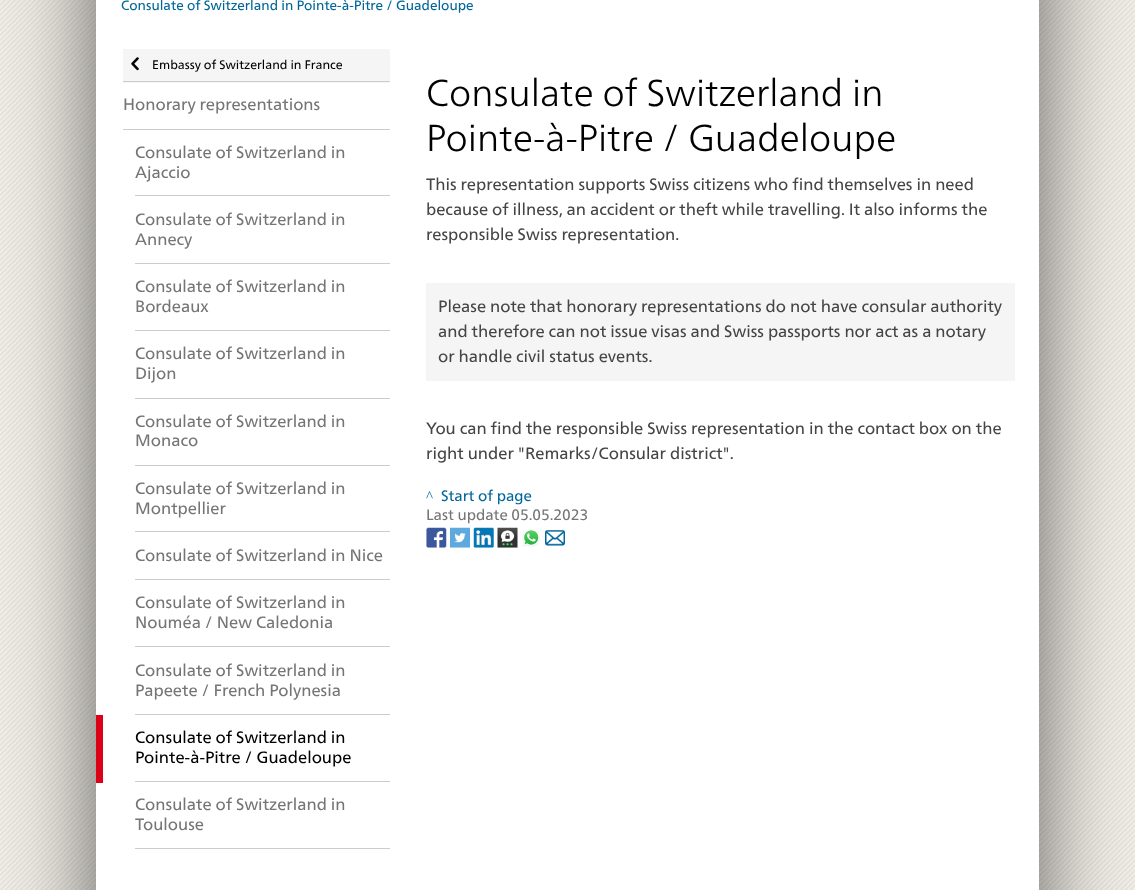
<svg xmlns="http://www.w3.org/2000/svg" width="1135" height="890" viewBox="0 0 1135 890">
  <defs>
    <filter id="blur1" x="-50%" y="-200%" width="200%" height="500%"><feGaussianBlur stdDeviation="45"/></filter>
  </defs>
  <rect width="100%" height="100%" fill="#ffffff"/>
  <image x="0" y="0" width="1135" height="890" href="img1.png"/>
  <rect x="96" y="-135" width="943" height="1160" fill="#000000" fill-opacity="0.6" filter="url(#blur1)"/>
  <rect x="96" y="0" width="943" height="890" fill="#ffffff"/>
  <text x="121" y="10" font-family="'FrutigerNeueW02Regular'" font-size="13.5" fill="#006699">Consulate of Switzerland in Pointe-à-Pitre / Guadeloupe</text>
  <rect x="123" y="49" width="267" height="34" fill="#f5f5f5"/>
  <rect x="123" y="81" width="267" height="1" fill="#cccccc"/>
  <image x="131" y="57" width="8" height="14" href="img2.png"/>
  <text x="152" y="69" font-family="'FrutigerNeueW02Regular'" font-size="12.4" fill="#000000">Embassy of Switzerland in France</text>
  <rect x="123" y="129" width="267" height="1" fill="#cccccc"/>
  <text x="123" y="110" font-family="'FrutigerNeueW02Regular'" font-size="16.5" fill="#757575">Honorary representations</text>
  <rect x="135" y="195" width="255" height="1" fill="#cccccc"/>
  <text x="135" y="158" font-family="'FrutigerNeueW02Regular'" font-size="16.5" fill="#757575">Consulate of Switzerland in</text>
  <text x="135" y="178" font-family="'FrutigerNeueW02Regular'" font-size="16.5" fill="#757575">Ajaccio</text>
  <rect x="135" y="263" width="255" height="1" fill="#cccccc"/>
  <text x="135" y="225" font-family="'FrutigerNeueW02Regular'" font-size="16.5" fill="#757575">Consulate of Switzerland in</text>
  <text x="135" y="245" font-family="'FrutigerNeueW02Regular'" font-size="16.5" fill="#757575">Annecy</text>
  <rect x="135" y="330" width="255" height="1" fill="#cccccc"/>
  <text x="135" y="292" font-family="'FrutigerNeueW02Regular'" font-size="16.5" fill="#757575">Consulate of Switzerland in</text>
  <text x="135" y="312" font-family="'FrutigerNeueW02Regular'" font-size="16.5" fill="#757575">Bordeaux</text>
  <rect x="135" y="398" width="255" height="1" fill="#cccccc"/>
  <text x="135" y="359" font-family="'FrutigerNeueW02Regular'" font-size="16.5" fill="#757575">Consulate of Switzerland in</text>
  <text x="135" y="379" font-family="'FrutigerNeueW02Regular'" font-size="16.5" fill="#757575">Dijon</text>
  <rect x="135" y="465" width="255" height="1" fill="#cccccc"/>
  <text x="135" y="427" font-family="'FrutigerNeueW02Regular'" font-size="16.5" fill="#757575">Consulate of Switzerland in</text>
  <text x="135" y="446" font-family="'FrutigerNeueW02Regular'" font-size="16.5" fill="#757575">Monaco</text>
  <rect x="135" y="531" width="255" height="1" fill="#cccccc"/>
  <text x="135" y="494" font-family="'FrutigerNeueW02Regular'" font-size="16.5" fill="#757575">Consulate of Switzerland in</text>
  <text x="135" y="514" font-family="'FrutigerNeueW02Regular'" font-size="16.5" fill="#757575">Montpellier</text>
  <rect x="135" y="579" width="255" height="1" fill="#cccccc"/>
  <text x="135" y="561" font-family="'FrutigerNeueW02Regular'" font-size="16.5" fill="#757575">Consulate of Switzerland in Nice</text>
  <rect x="135" y="646" width="255" height="1" fill="#cccccc"/>
  <text x="135" y="608" font-family="'FrutigerNeueW02Regular'" font-size="16.5" fill="#757575">Consulate of Switzerland in</text>
  <text x="135" y="628" font-family="'FrutigerNeueW02Regular'" font-size="16.5" fill="#757575">Nouméa / New Caledonia</text>
  <rect x="135" y="714" width="255" height="1" fill="#cccccc"/>
  <text x="135" y="676" font-family="'FrutigerNeueW02Regular'" font-size="16.5" fill="#757575">Consulate of Switzerland in</text>
  <text x="135" y="696" font-family="'FrutigerNeueW02Regular'" font-size="16.5" fill="#757575">Papeete / French Polynesia</text>
  <rect x="96" y="715" width="7" height="68" fill="#dc0018"/>
  <rect x="135" y="781" width="255" height="1" fill="#cccccc"/>
  <text x="135" y="743" font-family="'FrutigerNeueW02Regular'" font-size="16.5" fill="#000000">Consulate of Switzerland in</text>
  <text x="135" y="763" font-family="'FrutigerNeueW02Regular'" font-size="16.5" fill="#000000">Pointe-à-Pitre / Guadeloupe</text>
  <rect x="135" y="848" width="255" height="1" fill="#cccccc"/>
  <text x="135" y="810" font-family="'FrutigerNeueW02Regular'" font-size="16.5" fill="#757575">Consulate of Switzerland in</text>
  <text x="135" y="830" font-family="'FrutigerNeueW02Regular'" font-size="16.5" fill="#757575">Toulouse</text>
  <text x="426" y="106" font-family="'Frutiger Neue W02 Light'" font-size="37.5" font-weight="300" fill="#000000">Consulate of Switzerland in</text>
  <text x="426" y="151" font-family="'Frutiger Neue W02 Light'" font-size="37.5" font-weight="300" fill="#000000">Pointe-à-Pitre / Guadeloupe</text>
  <text x="426" y="190" font-family="'FrutigerNeueW02Regular'" font-size="16.5" fill="#454545">This representation supports Swiss citizens who find themselves in need</text>
  <text x="426" y="215" font-family="'FrutigerNeueW02Regular'" font-size="16.5" fill="#454545">because of illness, an accident or theft while travelling. It also informs the</text>
  <text x="426" y="240" font-family="'FrutigerNeueW02Regular'" font-size="16.5" fill="#454545">responsible Swiss representation.</text>
  <rect x="426" y="283" width="589" height="98" fill="#f5f5f5"/>
  <text x="438" y="312" font-family="'FrutigerNeueW02Regular'" font-size="16.5" fill="#454545">Please note that honorary representations do not have consular authority</text>
  <text x="438" y="337" font-family="'FrutigerNeueW02Regular'" font-size="16.5" fill="#454545">and therefore can not issue visas and Swiss passports nor act as a notary</text>
  <text x="438" y="362" font-family="'FrutigerNeueW02Regular'" font-size="16.5" fill="#454545">or handle civil status events.</text>
  <text x="426" y="434" font-family="'FrutigerNeueW02Regular'" font-size="16.5" fill="#454545">You can find the responsible Swiss representation in the contact box on the</text>
  <text x="426" y="459" font-family="'FrutigerNeueW02Regular'" font-size="16.5" fill="#454545">right under "Remarks/Consular district".</text>
  <text x="426" y="501" font-family="Liberation Serif" font-size="15" fill="#006699">^</text>
  <text x="441" y="501" font-family="'FrutigerNeueW02Regular'" font-size="15" fill="#006699">Start of page</text>
  <text x="426" y="520" font-family="'FrutigerNeueW02Regular'" font-size="15" fill="#757575">Last update 05.05.2023</text>
  <image x="426" y="527" width="21" height="21" href="img3.png"/>
  <image x="450" y="527" width="20" height="21" href="img4.png"/>
  <image x="473" y="527" width="21" height="21" href="img5.png"/>
  <image x="497" y="527" width="21" height="21" href="img6.png"/>
  <image x="522" y="529" width="18" height="18" href="img7.png"/>
  <image x="545" y="530" width="20" height="16" href="img8.png"/>
</svg>
